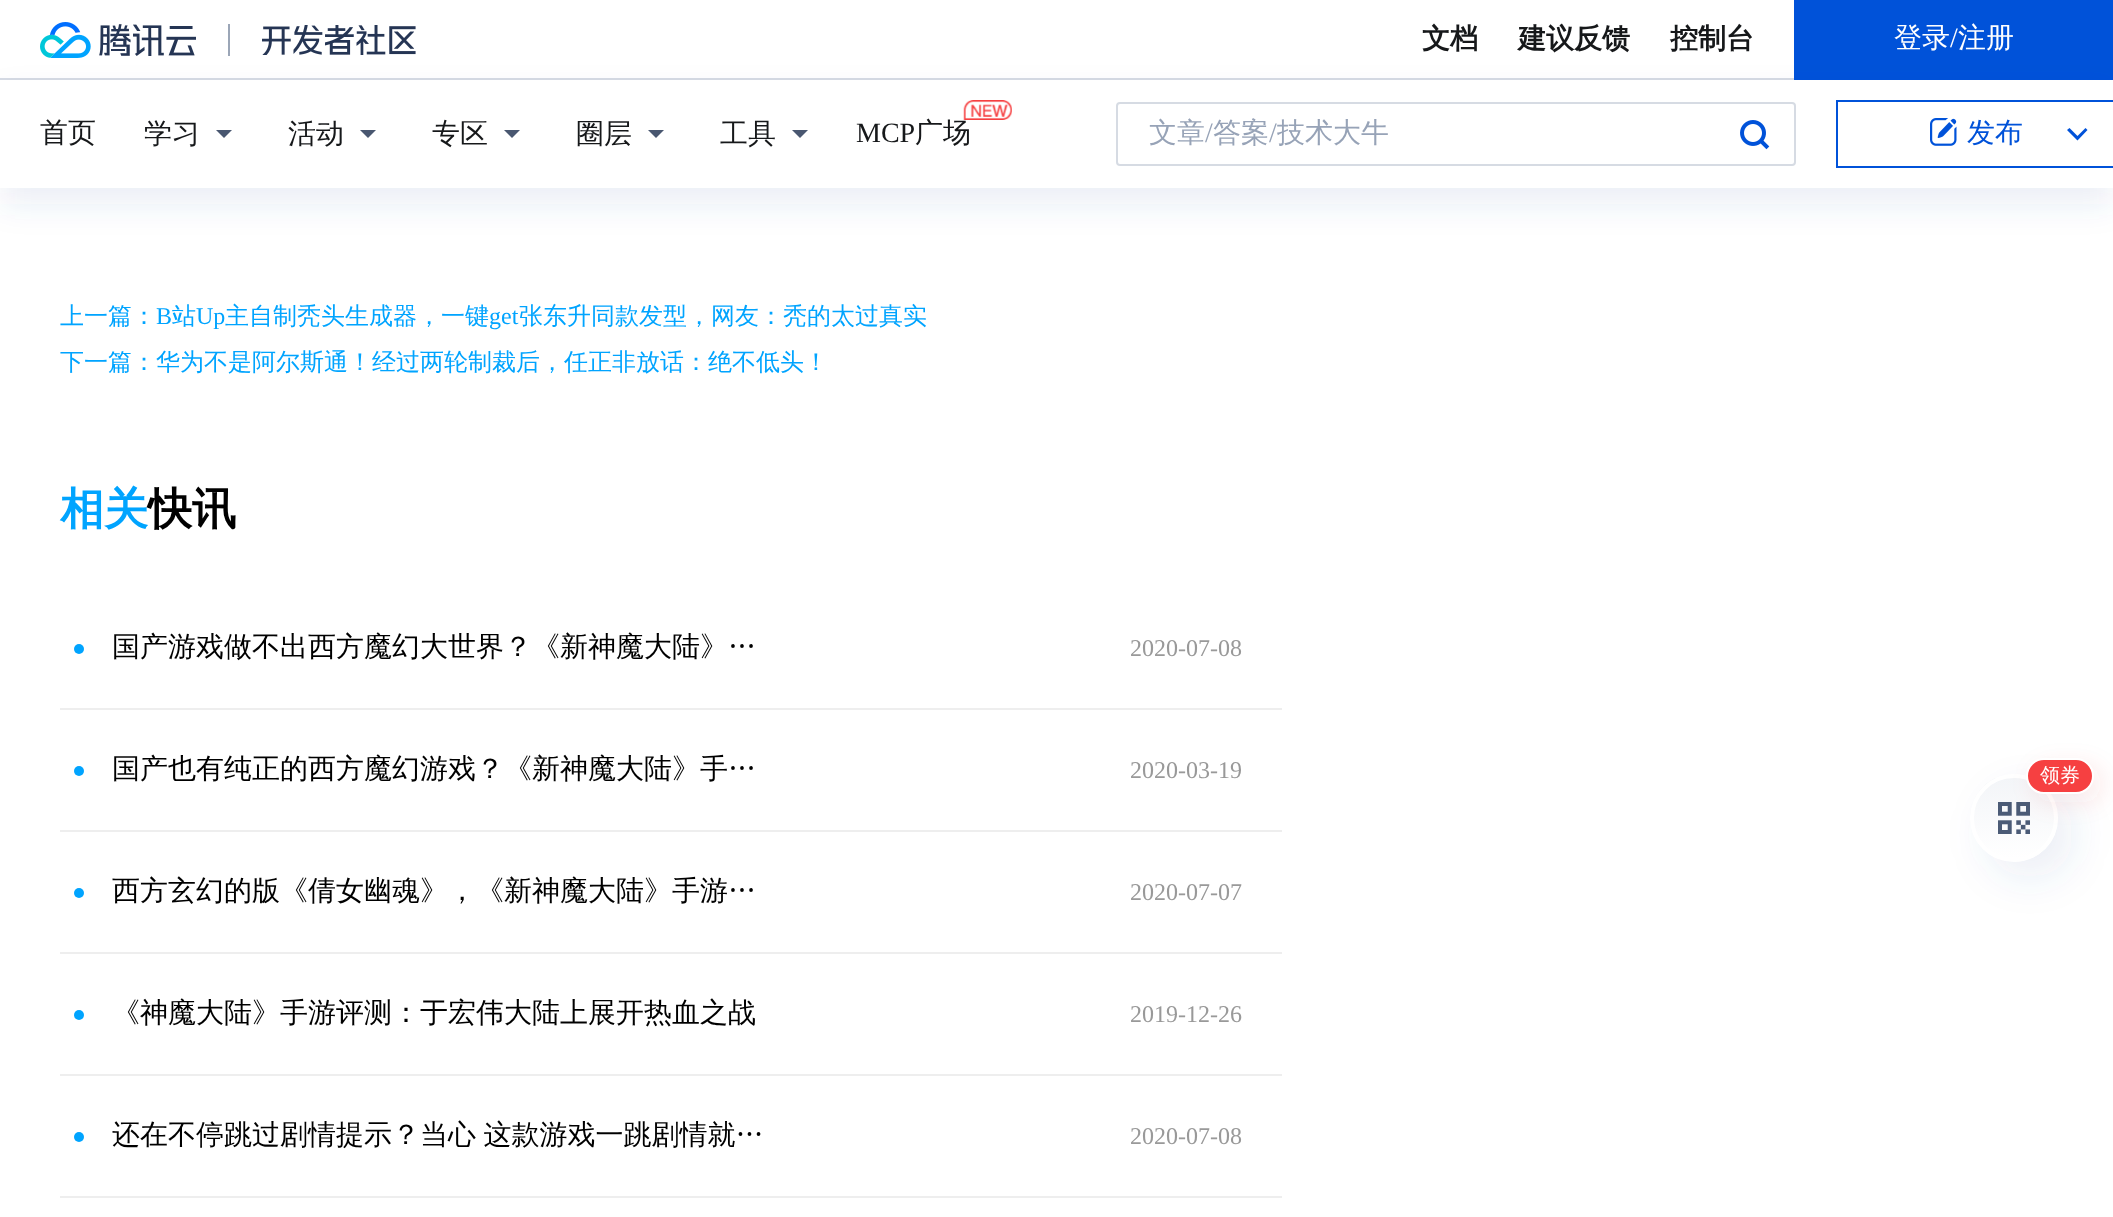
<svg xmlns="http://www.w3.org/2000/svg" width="2113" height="1217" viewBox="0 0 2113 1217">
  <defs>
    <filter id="blur1" x="-50%" y="-200%" width="200%" height="500%"><feGaussianBlur stdDeviation="16"/></filter>
    <filter id="blur2" x="-50%" y="-200%" width="200%" height="500%"><feGaussianBlur stdDeviation="20"/></filter>
    <clipPath id="clip1"><rect x="1970" y="774" width="88" height="88" rx="44"/></clipPath>
    <linearGradient id="g1" gradientUnits="userSpaceOnUse" x1="2014" y1="858" x2="2014" y2="778"><stop offset="0" stop-color="#ffffff"/><stop offset="1" stop-color="#f3f5f8"/></linearGradient>
    <filter id="blur3" x="-50%" y="-200%" width="200%" height="500%"><feGaussianBlur stdDeviation="12"/></filter>
  </defs>
  <rect width="100%" height="100%" fill="#ffffff"/>
  <rect x="0" y="78" width="1794" height="2" fill="#d6dbe3"/>
  <image x="40" y="22" width="156" height="36" href="img1.png"/>
  <rect x="228" y="24" width="2" height="32" fill="#9ba6b7"/>
  <image x="262" y="25" width="154" height="30" href="img2.png"/>
  <text x="1422" y="48" font-family="WenQuanYi Zen Hei" font-size="28" font-weight="bold" fill="#16181a">文档</text>
  <text x="1518" y="48" font-family="WenQuanYi Zen Hei" font-size="28" font-weight="bold" fill="#16181a">建议反馈</text>
  <text x="1670" y="48" font-family="WenQuanYi Zen Hei" font-size="28" font-weight="bold" fill="#16181a">控制台</text>
  <rect x="1794" y="0" width="319" height="80" fill="#0052d9"/>
  <text x="1894" y="47" font-family="WenQuanYi Zen Hei" font-size="28" font-weight="500" fill="#ffffff">登录</text>
  <text x="1950" y="47" font-family="Liberation Serif" font-size="28" fill="#ffffff">/</text>
  <text x="1958" y="47" font-family="WenQuanYi Zen Hei" font-size="28" font-weight="500" fill="#ffffff">注册</text>
  <rect x="0" y="96" width="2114" height="108" fill="#3763aa" fill-opacity="0.1" filter="url(#blur1)"/>
  <rect x="0" y="80" width="2113" height="108" fill="#ffffff"/>
  <text x="40" y="142" font-family="WenQuanYi Zen Hei" font-size="28" font-weight="500" fill="#16181a">首页</text>
  <text x="144" y="143" font-family="WenQuanYi Zen Hei" font-size="28" font-weight="500" fill="#16181a">学习</text>
  <path d="M224 138L232 130H216Z" fill="#495770" fill-rule="evenodd"/>
  <text x="288" y="143" font-family="WenQuanYi Zen Hei" font-size="28" font-weight="500" fill="#16181a">活动</text>
  <path d="M368 138L376 130H360Z" fill="#495770" fill-rule="evenodd"/>
  <text x="432" y="143" font-family="WenQuanYi Zen Hei" font-size="28" font-weight="500" fill="#16181a">专区</text>
  <path d="M512 138L520 130H504Z" fill="#495770" fill-rule="evenodd"/>
  <text x="576" y="143" font-family="WenQuanYi Zen Hei" font-size="28" font-weight="500" fill="#16181a">圈层</text>
  <path d="M656 138L664 130H648Z" fill="#495770" fill-rule="evenodd"/>
  <text x="720" y="143" font-family="WenQuanYi Zen Hei" font-size="28" font-weight="500" fill="#16181a">工具</text>
  <path d="M800 138L808 130H792Z" fill="#495770" fill-rule="evenodd"/>
  <text x="915" y="142" font-family="WenQuanYi Zen Hei" font-size="28" font-weight="500" fill="#16181a">广场</text>
  <image x="963" y="100" width="49" height="20" href="img3.png"/>
  <text x="856" y="142" font-family="Liberation Serif" font-size="28" fill="#16181a">MCP</text>
  <rect x="1117" y="103" width="678" height="62" rx="3" fill="none" stroke="#d6dbe3" stroke-width="2"/>
  <text x="1149" y="142" font-family="WenQuanYi Zen Hei" font-size="28" font-weight="500" fill="#97a3b7">文章</text>
  <text x="1205" y="142" font-family="Liberation Serif" font-size="28" fill="#97a3b7">/</text>
  <text x="1213" y="142" font-family="WenQuanYi Zen Hei" font-size="28" font-weight="500" fill="#97a3b7">答案</text>
  <text x="1269" y="142" font-family="Liberation Serif" font-size="28" fill="#97a3b7">/</text>
  <text x="1277" y="142" font-family="WenQuanYi Zen Hei" font-size="28" font-weight="500" fill="#97a3b7">技术大牛</text>
  <image x="1740" y="120" width="30" height="30" href="img4.png"/>
  <rect x="1837" y="101" width="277" height="66" fill="none" stroke="#0052d9" stroke-width="2"/>
  <image x="1930" y="118" width="27" height="28" href="img5.png"/>
  <text x="1967" y="142" font-family="WenQuanYi Zen Hei" font-size="28" font-weight="500" fill="#0052d9">发布</text>
  <path d="M2077.5 140.5L2067 130L2069.5 128L2077.5 136L2085.5 128L2087.5 130Z" fill="#0052d9"/>
  <text x="60" y="324" font-family="WenQuanYi Zen Hei" font-size="24" font-weight="500" fill="#00a4ff">上一篇：</text>
  <text x="156" y="324" font-family="Liberation Serif" font-size="24" fill="#00a4ff">B</text>
  <text x="172" y="324" font-family="WenQuanYi Zen Hei" font-size="24" font-weight="500" fill="#00a4ff">站</text>
  <text x="196" y="324" font-family="Liberation Serif" font-size="24" fill="#00a4ff">Up</text>
  <text x="225" y="324" font-family="WenQuanYi Zen Hei" font-size="24" font-weight="500" fill="#00a4ff">主自制秃头生成器，一键</text>
  <text x="489" y="324" font-family="Liberation Serif" font-size="24" fill="#00a4ff">get</text>
  <text x="519" y="324" font-family="WenQuanYi Zen Hei" font-size="24" font-weight="500" fill="#00a4ff">张东升同款发型，网友：秃的太过真实</text>
  <text x="60" y="370" font-family="WenQuanYi Zen Hei" font-size="24" font-weight="500" fill="#00a4ff">下一篇：华为不是阿尔斯通！经过两轮制裁后，任正非放话：绝不低头！</text>
  <text x="60" y="524" font-family="WenQuanYi Zen Hei" font-size="44" font-weight="bold" fill="#00a4ff">相关</text>
  <text x="148" y="524" font-family="WenQuanYi Zen Hei" font-size="44" font-weight="bold" fill="#000000">快讯</text>
  <rect x="60" y="708" width="1222" height="2" fill="#eeeeee"/>
  <circle cx="79" cy="649" r="5" fill="#00a4ff"/>
  <text x="112" y="656" font-family="WenQuanYi Zen Hei" font-size="28" font-weight="500" fill="#000000">国产游戏做不出西方魔幻大世界？《新神魔大陆》…</text>
  <text x="1130" y="656" font-family="Liberation Serif" font-size="24" fill="#999999">2020-07-08</text>
  <rect x="60" y="830" width="1222" height="2" fill="#eeeeee"/>
  <circle cx="79" cy="771" r="5" fill="#00a4ff"/>
  <text x="112" y="778" font-family="WenQuanYi Zen Hei" font-size="28" font-weight="500" fill="#000000">国产也有纯正的西方魔幻游戏？《新神魔大陆》手…</text>
  <text x="1130" y="778" font-family="Liberation Serif" font-size="24" fill="#999999">2020-03-19</text>
  <rect x="60" y="952" width="1222" height="2" fill="#eeeeee"/>
  <circle cx="79" cy="893" r="5" fill="#00a4ff"/>
  <text x="112" y="900" font-family="WenQuanYi Zen Hei" font-size="28" font-weight="500" fill="#000000">西方玄幻的版《倩女幽魂》，《新神魔大陆》手游…</text>
  <text x="1130" y="900" font-family="Liberation Serif" font-size="24" fill="#999999">2020-07-07</text>
  <rect x="60" y="1074" width="1222" height="2" fill="#eeeeee"/>
  <circle cx="79" cy="1015" r="5" fill="#00a4ff"/>
  <text x="112" y="1022" font-family="WenQuanYi Zen Hei" font-size="28" font-weight="500" fill="#000000">《神魔大陆》手游评测：于宏伟大陆上展开热血之战</text>
  <text x="1130" y="1022" font-family="Liberation Serif" font-size="24" fill="#999999">2019-12-26</text>
  <rect x="60" y="1196" width="1222" height="2" fill="#eeeeee"/>
  <circle cx="79" cy="1137" r="5" fill="#00a4ff"/>
  <text x="112" y="1144" word-spacing="-1" font-family="WenQuanYi Zen Hei" font-size="28" font-weight="500" fill="#000000">还在不停跳过剧情提示？当心 这款游戏一跳剧情就…</text>
  <text x="1130" y="1144" font-family="Liberation Serif" font-size="24" fill="#999999">2020-07-08</text>
  <rect x="1986" y="790" width="88" height="88" rx="44" fill="#3763aa" fill-opacity="0.1" filter="url(#blur2)"/>
  <g clip-path="url(#clip1)">
    <rect x="1970" y="778" width="88" height="80" fill="url(#g1)"/>
  </g>
  <circle cx="2014" cy="818" r="42" fill="none" stroke="#ffffff" stroke-width="4"/>
  <image x="1998" y="802" width="32" height="32" href="img6.png"/>
  <rect x="2034" y="766" width="68" height="36" rx="18" fill="#d63535" fill-opacity="0.1" filter="url(#blur3)"/>
  <rect x="2027" y="759" width="66" height="34" rx="17" fill="#f64041" stroke="#ffffff" stroke-width="2"/>
  <text x="2040" y="782" font-family="WenQuanYi Zen Hei" font-size="20" font-weight="500" fill="#ffffff">领券</text>
</svg>
